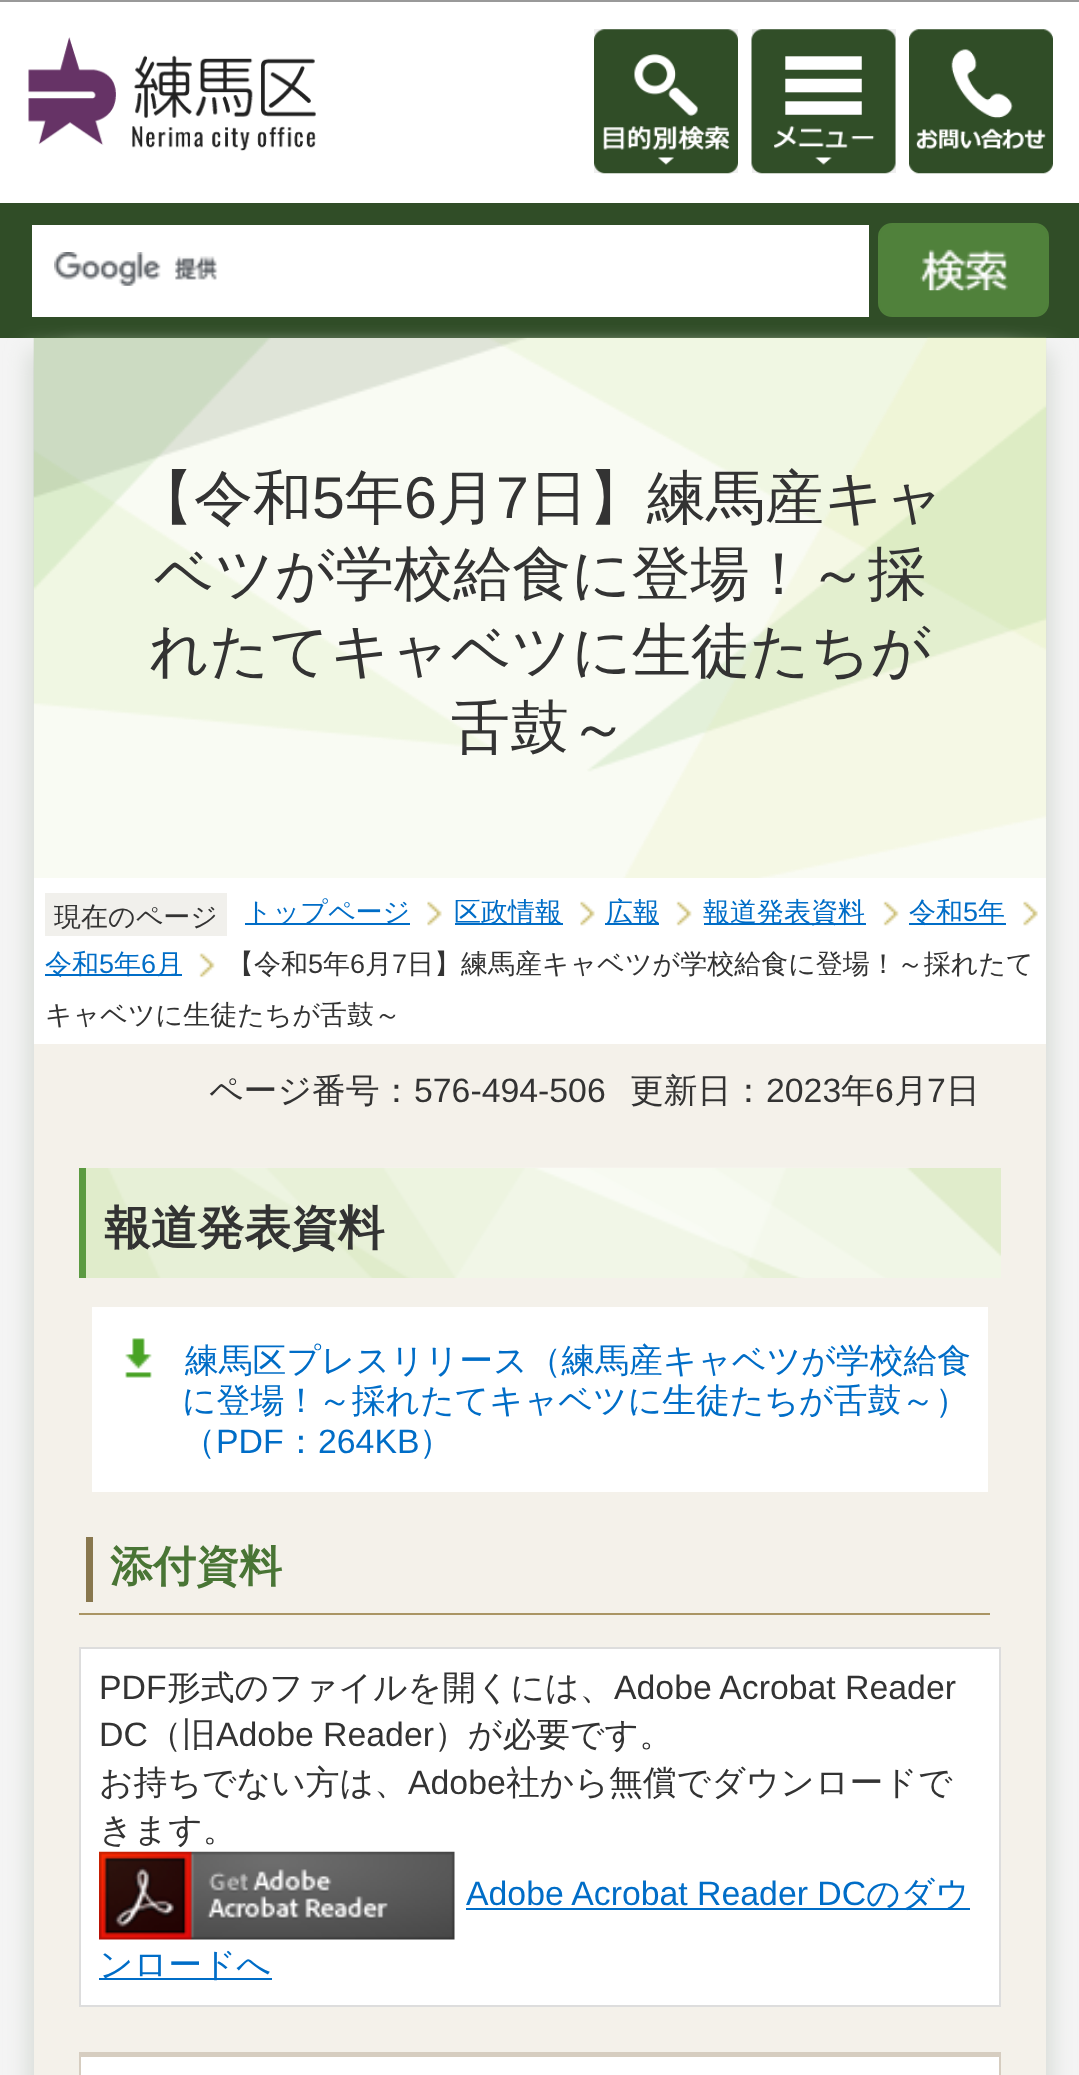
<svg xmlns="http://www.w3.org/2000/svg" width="1079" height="2075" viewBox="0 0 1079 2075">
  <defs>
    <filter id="blur1" x="-50%" y="-200%" width="200%" height="500%"><feGaussianBlur stdDeviation="11"/></filter>
  </defs>
  <rect width="100%" height="100%" fill="#ffffff"/>
  <rect x="0" y="0" width="1079" height="2" fill="#999999"/>
  <image x="28" y="37" width="288" height="108" href="img1.png"/>
  <image x="132" y="126" width="184" height="25" href="img2.png"/>
  <rect x="594" y="29" width="144" height="144" fill="#efefef"/>
  <image x="594" y="29" width="144" height="145" href="img3.png"/>
  <rect x="752" y="29" width="144" height="144" fill="#efefef"/>
  <image x="751" y="29" width="145" height="145" href="img4.png"/>
  <image x="909" y="29" width="144" height="145" href="img5.png"/>
  <rect x="0" y="338" width="1079" height="1737" fill="#f4f4f4"/>
  <rect x="0" y="203" width="1079" height="135" fill="#304d27"/>
  <rect x="32" y="225" width="837" height="92" fill="#ffffff"/>
  <image x="54" y="252" width="164" height="34" href="img6.png"/>
  <rect x="879" y="224" width="169" height="92" rx="13" fill="#50813b" stroke="#50813b" stroke-width="2"/>
  <image x="920" y="249" width="88" height="42" href="img7.png"/>
  <rect x="65" y="351" width="986" height="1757" fill="#d6dad5" filter="url(#blur1)"/>
  <rect x="29" y="351" width="986" height="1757" fill="#d6dad5" filter="url(#blur1)"/>
  <rect x="34" y="1044" width="1012" height="1031" fill="#f4f1ea"/>
  <rect x="34" y="338" width="1012" height="540" fill="#f9fbf3"/>
  <image x="33" y="337" width="1014" height="541" href="img8.png"/>
  <rect x="34" y="878" width="1012" height="166" fill="#ffffff"/>
  <text x="135" y="518" font-family="WenQuanYi Zen Hei" font-size="59" font-weight="500" fill="#333333">【令和</text>
  <text x="312" y="518" font-family="Liberation Sans" font-size="59" fill="#333333">5</text>
  <text x="345" y="518" font-family="WenQuanYi Zen Hei" font-size="59" font-weight="500" fill="#333333">年</text>
  <text x="404" y="518" font-family="Liberation Sans" font-size="59" fill="#333333">6</text>
  <text x="437" y="518" font-family="WenQuanYi Zen Hei" font-size="59" font-weight="500" fill="#333333">月</text>
  <text x="496" y="518" font-family="Liberation Sans" font-size="59" fill="#333333">7</text>
  <text x="529" y="518" font-family="WenQuanYi Zen Hei" font-size="59" font-weight="500" fill="#333333">日】練馬産キャ</text>
  <text x="154" y="594" font-family="WenQuanYi Zen Hei" font-size="59" font-weight="500" fill="#333333">ベツが学校給食に登場！～採</text>
  <text x="149" y="671" font-family="WenQuanYi Zen Hei" font-size="59" font-weight="500" fill="#333333">れたてキャベツに生徒たちが</text>
  <text x="451" y="748" font-family="WenQuanYi Zen Hei" font-size="59" font-weight="500" fill="#333333">舌鼓～</text>
  <rect x="245" y="923" width="165" height="2" fill="#006dc7"/>
  <text x="245" y="921" font-family="WenQuanYi Zen Hei" font-size="27" font-weight="500" fill="#006dc7">トップページ</text>
  <image x="427" y="901" width="15" height="25" href="img9.png"/>
  <rect x="455" y="923" width="108" height="2" fill="#006dc7"/>
  <text x="454" y="921" font-family="WenQuanYi Zen Hei" font-size="27" font-weight="500" fill="#006dc7">区政情報</text>
  <image x="580" y="901" width="15" height="25" href="img9.png"/>
  <rect x="605" y="923" width="54" height="2" fill="#006dc7"/>
  <text x="606" y="921" font-family="WenQuanYi Zen Hei" font-size="27" font-weight="500" fill="#006dc7">広報</text>
  <image x="676" y="901" width="16" height="25" href="img10.png"/>
  <rect x="704" y="923" width="162" height="2" fill="#006dc7"/>
  <text x="703" y="921" font-family="WenQuanYi Zen Hei" font-size="27" font-weight="500" fill="#006dc7">報道発表資料</text>
  <image x="883" y="901" width="16" height="25" href="img11.png"/>
  <rect x="909" y="923" width="97" height="2" fill="#006dc7"/>
  <text x="909" y="921" font-family="WenQuanYi Zen Hei" font-size="27" font-weight="500" fill="#006dc7">令和</text>
  <text x="963" y="921" font-family="Liberation Sans" font-size="27" fill="#006dc7">5</text>
  <text x="978" y="921" font-family="WenQuanYi Zen Hei" font-size="27" font-weight="500" fill="#006dc7">年</text>
  <image x="1023" y="901" width="15" height="25" href="img12.png"/>
  <rect x="45" y="974" width="137" height="2" fill="#006dc7"/>
  <text x="45" y="973" font-family="WenQuanYi Zen Hei" font-size="27" font-weight="500" fill="#006dc7">令和</text>
  <text x="99" y="973" font-family="Liberation Sans" font-size="27" fill="#006dc7">5</text>
  <text x="114" y="973" font-family="WenQuanYi Zen Hei" font-size="27" font-weight="500" fill="#006dc7">年</text>
  <text x="141" y="973" font-family="Liberation Sans" font-size="27" fill="#006dc7">6</text>
  <text x="156" y="973" font-family="WenQuanYi Zen Hei" font-size="27" font-weight="500" fill="#006dc7">月</text>
  <image x="199" y="953" width="16" height="25" href="img13.png"/>
  <text x="227" y="973" font-family="WenQuanYi Zen Hei" font-size="27" font-weight="500" fill="#333333">【令和</text>
  <text x="308" y="973" font-family="Liberation Sans" font-size="27" fill="#333333">5</text>
  <text x="323" y="973" font-family="WenQuanYi Zen Hei" font-size="27" font-weight="500" fill="#333333">年</text>
  <text x="350" y="973" font-family="Liberation Sans" font-size="27" fill="#333333">6</text>
  <text x="365" y="973" font-family="WenQuanYi Zen Hei" font-size="27" font-weight="500" fill="#333333">月</text>
  <text x="392" y="973" font-family="Liberation Sans" font-size="27" fill="#333333">7</text>
  <text x="407" y="973" font-family="WenQuanYi Zen Hei" font-size="27" font-weight="500" fill="#333333">日】練馬産キャベツが学校給食に登場！～採れたて</text>
  <text x="45" y="1024" font-family="WenQuanYi Zen Hei" font-size="27" font-weight="500" fill="#333333">キャベツに生徒たちが舌鼓～</text>
  <rect x="45" y="893" width="182" height="43" fill="#f1f0ec"/>
  <text x="54" y="926" font-family="WenQuanYi Zen Hei" font-size="27" font-weight="500" fill="#333333">現在のページ</text>
  <text x="209" y="1102" font-family="WenQuanYi Zen Hei" font-size="33.8" font-weight="500" fill="#333333">ページ番号：</text>
  <text x="414" y="1102" font-family="Liberation Sans" font-size="33.8" fill="#333333">576-494-506</text>
  <text x="630" y="1102" font-family="WenQuanYi Zen Hei" font-size="33.8" font-weight="500" fill="#333333">更新日：</text>
  <text x="766" y="1102" font-family="Liberation Sans" font-size="33.8" fill="#333333">2023</text>
  <text x="841" y="1102" font-family="WenQuanYi Zen Hei" font-size="33.8" font-weight="500" fill="#333333">年</text>
  <text x="875" y="1102" font-family="Liberation Sans" font-size="33.8" fill="#333333">6</text>
  <text x="894" y="1102" font-family="WenQuanYi Zen Hei" font-size="33.8" font-weight="500" fill="#333333">月</text>
  <text x="927" y="1102" font-family="Liberation Sans" font-size="33.8" fill="#333333">7</text>
  <text x="946" y="1102" font-family="WenQuanYi Zen Hei" font-size="33.8" font-weight="500" fill="#333333">日</text>
  <rect x="86" y="1168" width="915" height="110" fill="#e0eccb"/>
  <image x="108" y="1167" width="893" height="111" href="img14.png"/>
  <rect x="79" y="1168" width="7" height="110" fill="#5b9a41"/>
  <text x="104" y="1244" font-family="WenQuanYi Zen Hei" font-size="46.75" font-weight="bold" fill="#333333">報道発表資料</text>
  <rect x="92" y="1307" width="896" height="185" fill="#ffffff"/>
  <image x="125" y="1338" width="27" height="40" href="img15.png"/>
  <text x="185" y="1372" font-family="WenQuanYi Zen Hei" font-size="33.8" font-weight="500" fill="#006dc7">練馬区プレスリリース（練馬産キャベツが学校給食</text>
  <text x="182" y="1412" font-family="WenQuanYi Zen Hei" font-size="33.8" font-weight="500" fill="#006dc7">に登場！～採れたてキャベツに生徒たちが舌鼓～）</text>
  <text x="182" y="1453" font-family="WenQuanYi Zen Hei" font-size="33.8" font-weight="500" fill="#006dc7">（</text>
  <text x="216" y="1453" font-family="Liberation Sans" font-size="33.8" fill="#006dc7">PDF</text>
  <text x="284" y="1453" font-family="WenQuanYi Zen Hei" font-size="33.8" font-weight="500" fill="#006dc7">：</text>
  <text x="318" y="1453" font-family="Liberation Sans" font-size="33.8" fill="#006dc7">264KB</text>
  <text x="419" y="1453" font-family="WenQuanYi Zen Hei" font-size="33.8" font-weight="500" fill="#006dc7">）</text>
  <rect x="79" y="1613" width="911" height="2" fill="#aa9564"/>
  <rect x="86" y="1537" width="7" height="65" fill="#88774e"/>
  <text x="110" y="1581" font-family="WenQuanYi Zen Hei" font-size="43" font-weight="bold" fill="#497535">添付資料</text>
  <rect x="80" y="1648" width="920" height="358" fill="#ffffff" stroke="#dddddd" stroke-width="2"/>
  <text x="99" y="1699" font-family="Liberation Sans" font-size="33.8" fill="#333333">PDF</text>
  <text x="167" y="1699" font-family="WenQuanYi Zen Hei" font-size="33.8" font-weight="500" fill="#333333">形式のファイルを開くには、</text>
  <text x="614" y="1699" font-family="Liberation Sans" font-size="33.8" fill="#333333">Adobe Acrobat Reader</text>
  <text x="99" y="1746" font-family="Liberation Sans" font-size="33.8" fill="#333333">DC</text>
  <text x="148" y="1746" font-family="WenQuanYi Zen Hei" font-size="33.8" font-weight="500" fill="#333333">（旧</text>
  <text x="216" y="1746" font-family="Liberation Sans" font-size="33.8" fill="#333333">Adobe Reader</text>
  <text x="434" y="1746" font-family="WenQuanYi Zen Hei" font-size="33.8" font-weight="500" fill="#333333">）が必要です。</text>
  <text x="99" y="1794" font-family="WenQuanYi Zen Hei" font-size="33.8" font-weight="500" fill="#333333">お持ちでない方は、</text>
  <text x="408" y="1794" font-family="Liberation Sans" font-size="33.8" fill="#333333">Adobe</text>
  <text x="506" y="1794" font-family="WenQuanYi Zen Hei" font-size="33.8" font-weight="500" fill="#333333">社から無償でダウンロードで</text>
  <text x="99" y="1841" font-family="WenQuanYi Zen Hei" font-size="33.8" font-weight="500" fill="#333333">きます。</text>
  <image x="99" y="1851" width="356" height="89" href="img16.png"/>
  <text x="466" y="1905" font-family="Liberation Sans" font-size="33.8" fill="#006dc7">Adobe Acrobat Reader DC</text>
  <rect x="466" y="1908" width="504" height="2" fill="#006dc7"/>
  <text x="866" y="1905" font-family="WenQuanYi Zen Hei" font-size="33.8" font-weight="500" fill="#006dc7">のダウ</text>
  <rect x="99" y="1978" width="173" height="2" fill="#006dc7"/>
  <text x="99" y="1976" font-family="WenQuanYi Zen Hei" font-size="33.8" font-weight="500" fill="#006dc7">ンロードへ</text>
  <rect x="81" y="2057" width="918" height="18" fill="#ffffff"/>
  <rect x="79" y="2052" width="922" height="5" fill="#d6cdc0"/>
  <rect x="999" y="2052" width="2" height="23" fill="#d6cdc0"/>
  <rect x="79" y="2052" width="2" height="23" fill="#d6cdc0"/>
</svg>
